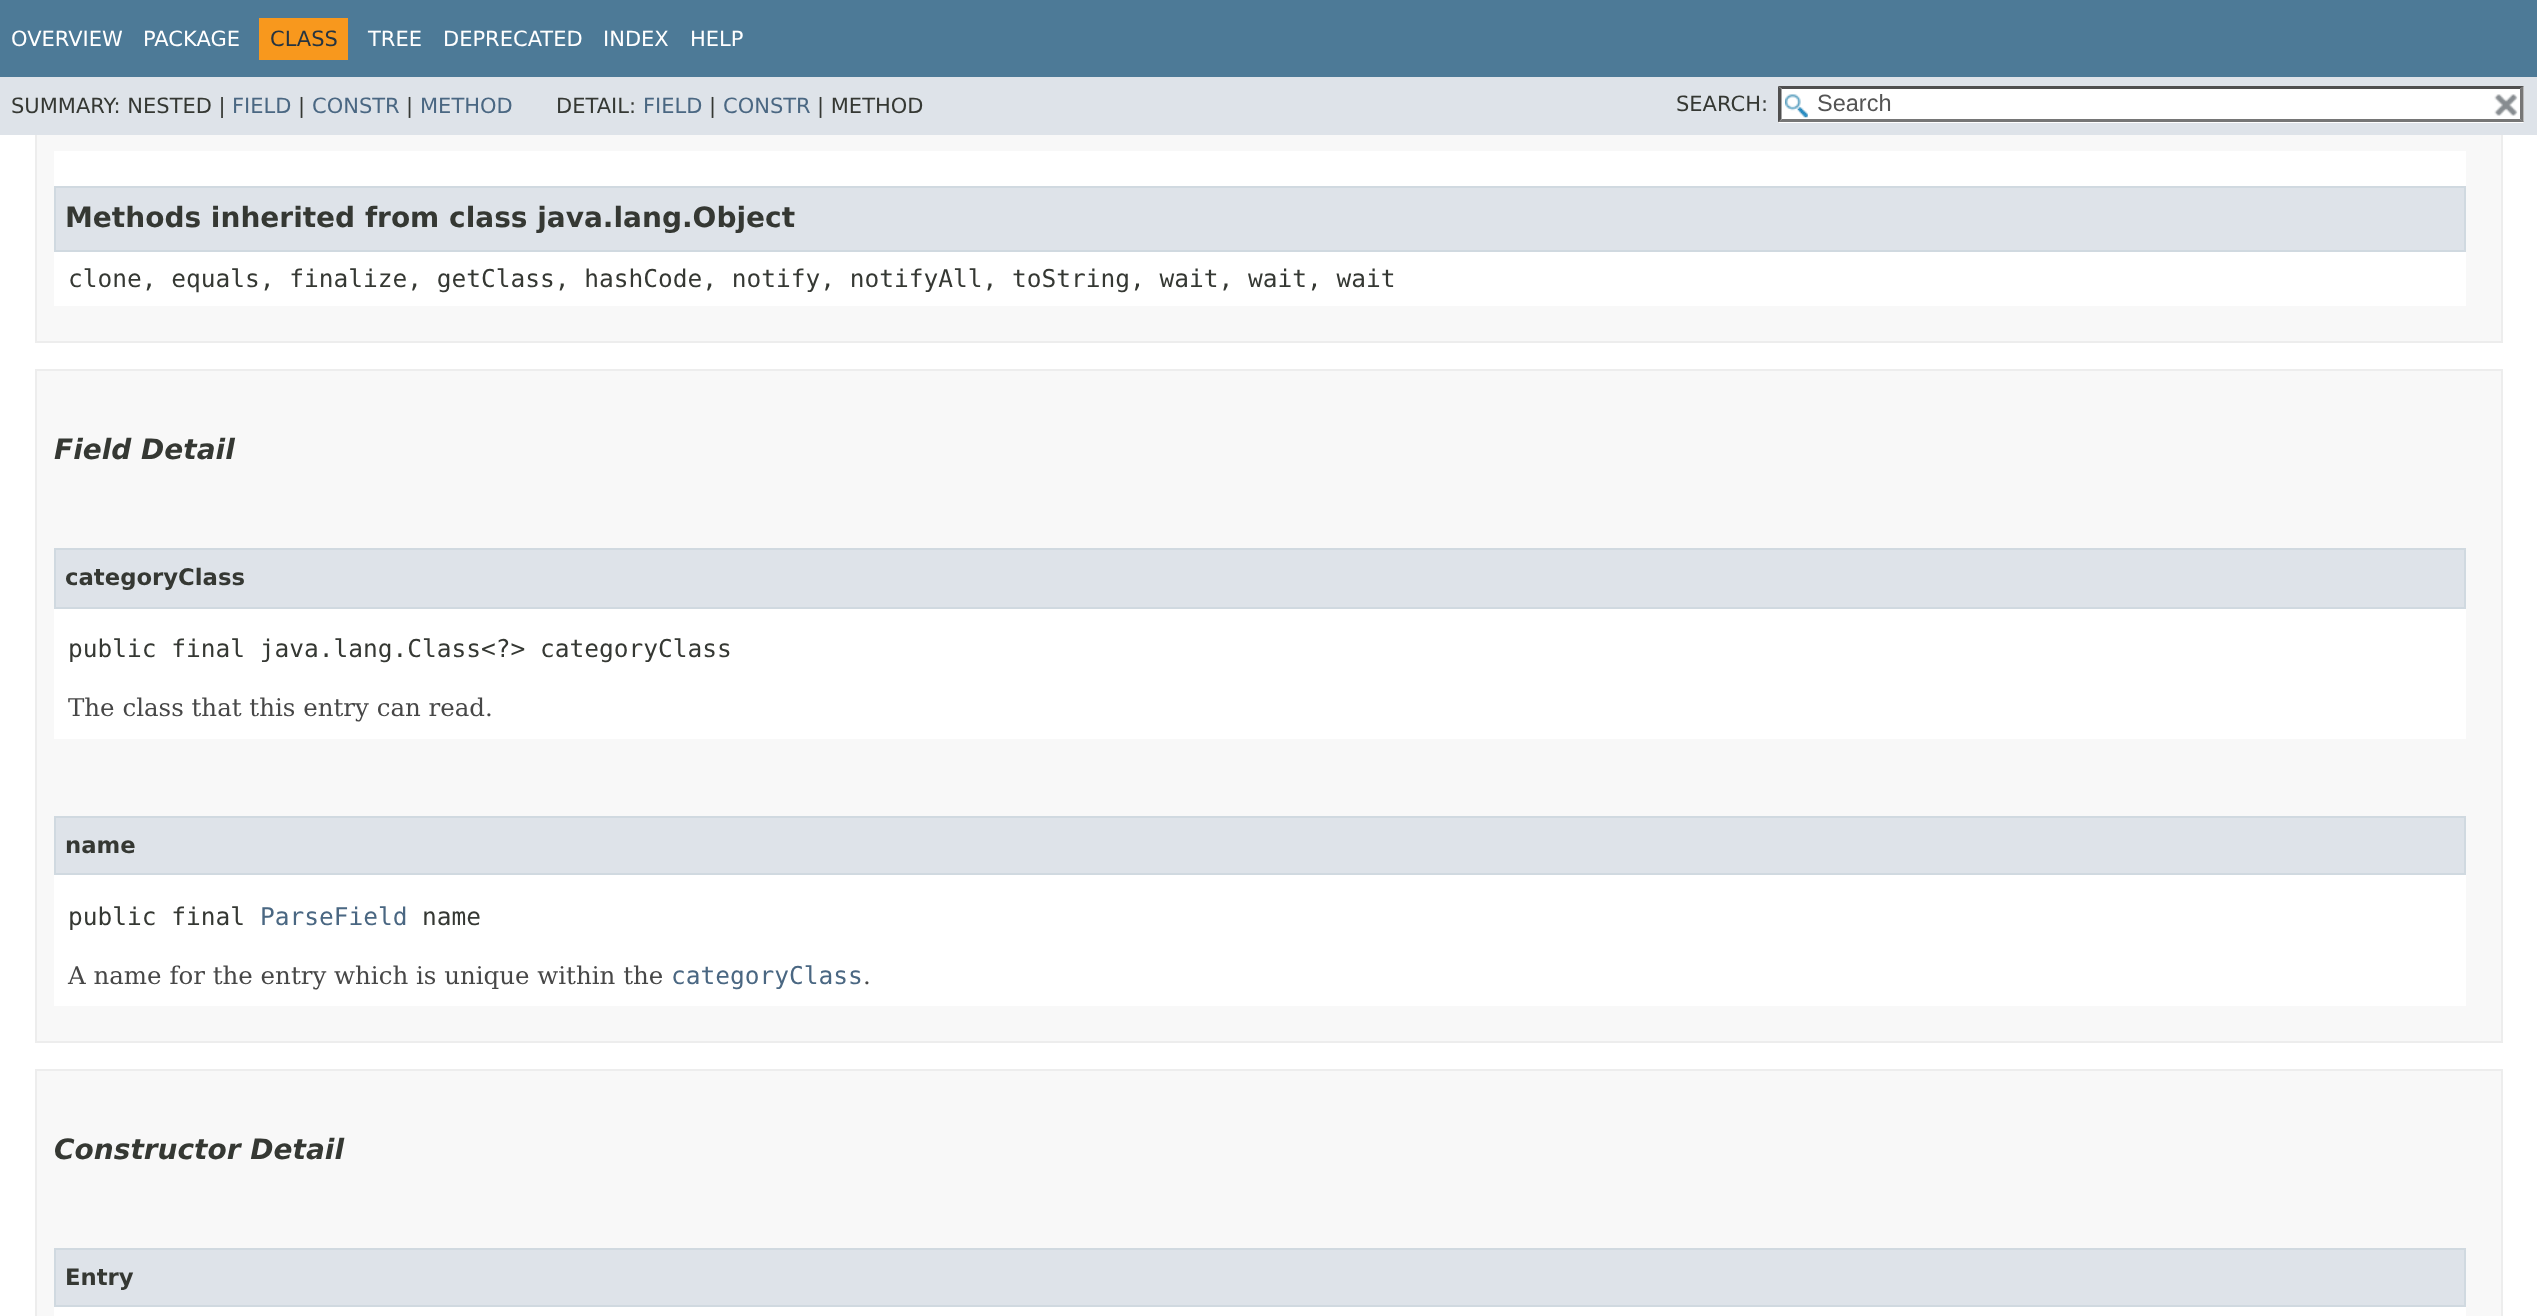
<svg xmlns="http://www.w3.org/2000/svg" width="2537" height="1316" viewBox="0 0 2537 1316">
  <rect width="100%" height="100%" fill="#ffffff"/>
  <rect x="37" y="135" width="2464" height="206" fill="#f8f8f8"/>
  <rect x="36" y="24" width="2466" height="318" fill="none" stroke="#ededed" stroke-width="2"/>
  <rect x="0" y="0" width="2537" height="77" fill="#4d7a97"/>
  <text x="11" y="46" font-family="DejaVu Sans" font-size="21" fill="#ffffff">OVERVIEW</text>
  <text x="143" y="46" font-family="DejaVu Sans" font-size="21" fill="#ffffff">PACKAGE</text>
  <rect x="259" y="18" width="89" height="42" fill="#f8981d"/>
  <text x="270" y="46" font-family="DejaVu Sans" font-size="21" fill="#253441">CLASS</text>
  <text x="368" y="46" font-family="DejaVu Sans" font-size="21" fill="#ffffff">TREE</text>
  <text x="443" y="46" font-family="DejaVu Sans" font-size="21" fill="#ffffff">DEPRECATED</text>
  <text x="603" y="46" font-family="DejaVu Sans" font-size="21" fill="#ffffff">INDEX</text>
  <text x="690" y="46" font-family="DejaVu Sans" font-size="21" fill="#ffffff">HELP</text>
  <rect x="0" y="77" width="2537" height="58" fill="#dee3e9"/>
  <text x="11" y="113" font-family="DejaVu Sans" font-size="21" fill="#353833">SUMMARY: NESTED |</text>
  <text x="232" y="113" font-family="DejaVu Sans" font-size="21" fill="#4a6782">FIELD</text>
  <text x="298" y="113" font-family="DejaVu Sans" font-size="21" fill="#353833">|</text>
  <text x="312" y="113" font-family="DejaVu Sans" font-size="21" fill="#4a6782">CONSTR</text>
  <text x="406" y="113" font-family="DejaVu Sans" font-size="21" fill="#353833">|</text>
  <text x="420" y="113" font-family="DejaVu Sans" font-size="21" fill="#4a6782">METHOD</text>
  <text x="556" y="113" font-family="DejaVu Sans" font-size="21" fill="#353833">DETAIL:</text>
  <text x="643" y="113" font-family="DejaVu Sans" font-size="21" fill="#4a6782">FIELD</text>
  <text x="709" y="113" font-family="DejaVu Sans" font-size="21" fill="#353833">|</text>
  <text x="723" y="113" font-family="DejaVu Sans" font-size="21" fill="#4a6782">CONSTR</text>
  <text x="817" y="113" font-family="DejaVu Sans" font-size="21" fill="#353833">| METHOD</text>
  <text x="1676" y="111" font-family="DejaVu Sans" font-size="21" fill="#353833">SEARCH:</text>
  <rect x="1778" y="86" width="746" height="37" fill="#ffffff"/>
  <image x="1785" y="94" width="23" height="24" href="img1.png"/>
  <path d="M1778 86H2524L2520 89H1782Z" fill="#4f4f4f"/>
  <path d="M2523.5 86V122.5L2520 119V89Z" fill="#767676"/>
  <path d="M2524 122H1778L1782 119H2520Z" fill="#767676"/>
  <path d="M1778 122.5V86L1781.5 89V119Z" fill="#4f4f4f"/>
  <text x="1817" y="111" font-family="Liberation Sans" font-size="23.5" fill="#545454">Search</text>
  <image x="2494" y="94" width="24" height="22" href="img2.png"/>
  <rect x="54" y="151" width="2412" height="155" fill="#ffffff"/>
  <rect x="55" y="187" width="2410" height="64" fill="#dee3e9" stroke="#d0d9e0" stroke-width="2"/>
  <text x="65" y="227" font-family="DejaVu Sans" font-size="28" font-weight="bold" fill="#353833">Methods inherited from class java.lang.Object</text>
  <text x="68" y="287" font-family="DejaVu Sans Mono" font-size="24.5" fill="#353833">clone, equals, finalize, getClass, hashCode, notify, notifyAll, toString, wait, wait, wait</text>
  <rect x="36" y="370" width="2466" height="672" fill="#f8f8f8" stroke="#ededed" stroke-width="2"/>
  <text x="54" y="459" font-family="DejaVu Sans" font-size="28" font-weight="bold" font-style="italic" fill="#353833">Field Detail</text>
  <rect x="54" y="609" width="2412" height="130" fill="#ffffff"/>
  <rect x="55" y="549" width="2410" height="59" fill="#dee3e9" stroke="#d0d9e0" stroke-width="2"/>
  <text x="65" y="585" font-family="DejaVu Sans" font-size="22.75" font-weight="bold" fill="#353833">categoryClass</text>
  <text x="68" y="657" font-family="DejaVu Sans Mono" font-size="24.5" fill="#353833">public final java.lang.Class&lt;?&gt; categoryClass</text>
  <text x="68" y="716" font-family="DejaVu Serif" font-size="24.5" fill="#474747">The class that this entry can read.</text>
  <rect x="54" y="875" width="2412" height="131" fill="#ffffff"/>
  <rect x="55" y="817" width="2410" height="57" fill="#dee3e9" stroke="#d0d9e0" stroke-width="2"/>
  <text x="65" y="853" font-family="DejaVu Sans" font-size="22.75" font-weight="bold" fill="#353833">name</text>
  <text x="68" y="925" font-family="DejaVu Sans Mono" font-size="24.5" fill="#353833">public final</text>
  <text x="260" y="925" font-family="DejaVu Sans Mono" font-size="24.5" fill="#4a6782">ParseField</text>
  <text x="422" y="925" font-family="DejaVu Sans Mono" font-size="24.5" fill="#353833">name</text>
  <text x="68" y="984" font-family="DejaVu Serif" font-size="24.5" fill="#474747">A name for the entry which is unique within the</text>
  <text x="671" y="984" font-family="DejaVu Sans Mono" font-size="24.5" fill="#4a6782">categoryClass</text>
  <text x="863" y="984" font-family="DejaVu Serif" font-size="24.5" fill="#474747">.</text>
  <rect x="36" y="1070" width="2466" height="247" fill="#f8f8f8" stroke="#ededed" stroke-width="2"/>
  <text x="54" y="1159" font-family="DejaVu Sans" font-size="28" font-weight="bold" font-style="italic" fill="#353833">Constructor Detail</text>
  <rect x="54" y="1307" width="2412" height="9" fill="#ffffff"/>
  <rect x="55" y="1249" width="2410" height="57" fill="#dee3e9" stroke="#d0d9e0" stroke-width="2"/>
  <text x="65" y="1285" font-family="DejaVu Sans" font-size="22.75" font-weight="bold" fill="#353833">Entry</text>
</svg>
